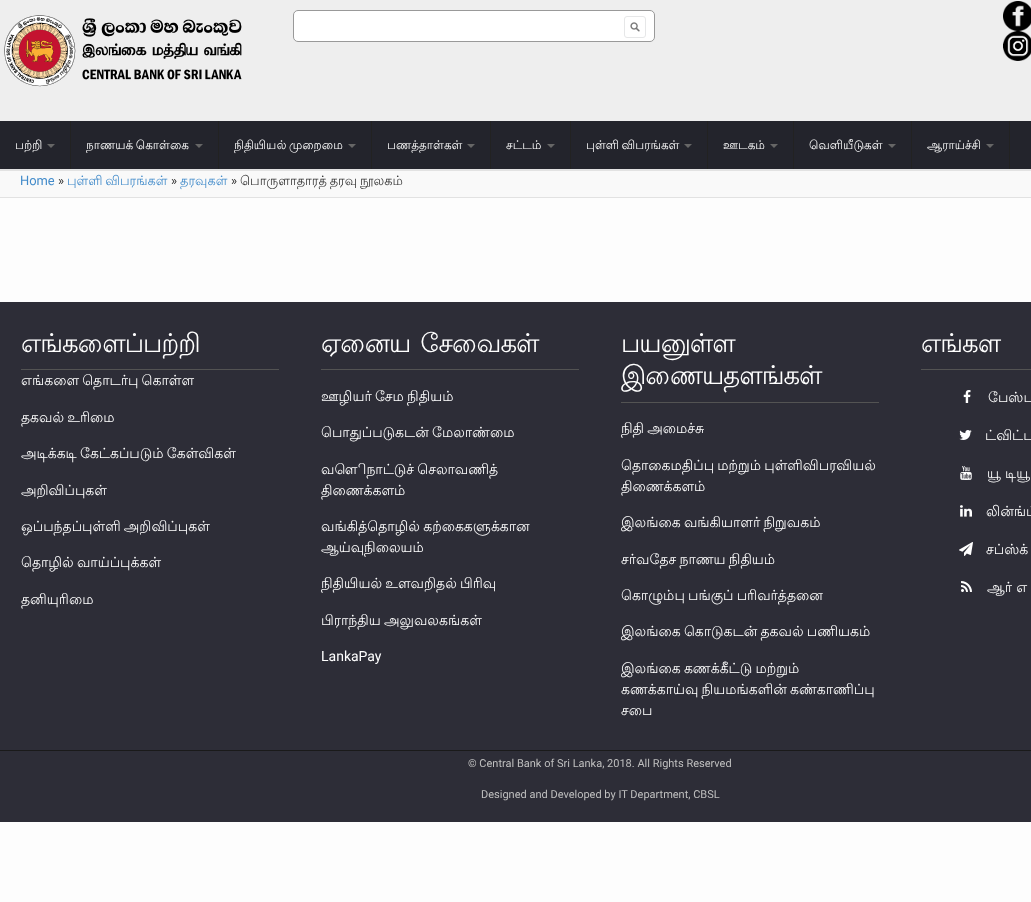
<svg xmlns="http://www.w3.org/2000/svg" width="1031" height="902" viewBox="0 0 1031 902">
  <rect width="100%" height="100%" fill="#fdfdfd"/>
  <rect x="0" y="0" width="1031" height="121" fill="#eeeeee"/>
  <image x="4" y="15" width="238" height="72" href="img1.png"/>
  <rect x="293.5" y="10.5" width="361" height="31" rx="4.5" fill="#ffffff" stroke="#999999"/>
  <image x="630" y="22" width="10" height="10" href="img2.png"/>
  <rect x="624.5" y="16.5" width="21" height="21" rx="2.5" fill="none" stroke="#e6e7e8"/>
  <image x="1003" y="1" width="28" height="30" href="img3.png"/>
  <image x="1003" y="31" width="28" height="30" href="img4.png"/>
  <rect x="0" y="121" width="1031" height="48" fill="#23242c"/>
  <rect x="70" y="121" width="1" height="48" fill="#222222"/>
  <text x="15" y="149" font-family="Lohit Tamil" font-size="12" fill="#ffffff">பற்றி</text>
  <path d="M47 144H55L51 148Z" fill="#666666"/>
  <rect x="218" y="121" width="1" height="48" fill="#222222"/>
  <text x="86" y="149" word-spacing="-1" font-family="Lohit Tamil" font-size="12" fill="#ffffff">நாணயக் கொள்கை</text>
  <path d="M195 144H203L199 148Z" fill="#666666"/>
  <rect x="371" y="121" width="1" height="48" fill="#222222"/>
  <text x="234" y="149" word-spacing="-1" font-family="Lohit Tamil" font-size="12" fill="#ffffff">நிதியியல் முறைமை</text>
  <path d="M348 144H356L352 148Z" fill="#666666"/>
  <rect x="490" y="121" width="1" height="48" fill="#222222"/>
  <text x="387" y="149" font-family="Lohit Tamil" font-size="12" fill="#ffffff">பணத்தாள்கள்</text>
  <path d="M467 144H475L471 148Z" fill="#666666"/>
  <rect x="570" y="121" width="1" height="48" fill="#222222"/>
  <text x="506" y="149" font-family="Lohit Tamil" font-size="12" fill="#ffffff">சட்டம்</text>
  <path d="M547 144H555L551 148Z" fill="#666666"/>
  <rect x="707" y="121" width="1" height="48" fill="#222222"/>
  <text x="586" y="149" word-spacing="-1" font-family="Lohit Tamil" font-size="12" fill="#ffffff">புள்ளி விபரங்கள்</text>
  <path d="M684 144H692L688 148Z" fill="#666666"/>
  <rect x="793" y="121" width="1" height="48" fill="#222222"/>
  <text x="723" y="149" font-family="Lohit Tamil" font-size="12" fill="#ffffff">ஊடகம்</text>
  <path d="M770 144H778L774 148Z" fill="#666666"/>
  <rect x="911" y="121" width="1" height="48" fill="#222222"/>
  <text x="809" y="149" font-family="Lohit Tamil" font-size="12" fill="#ffffff">வெளியீடுகள்</text>
  <path d="M888 144H896L892 148Z" fill="#666666"/>
  <rect x="1009" y="121" width="1" height="48" fill="#222222"/>
  <text x="927" y="149" font-family="Lohit Tamil" font-size="12" fill="#ffffff">ஆராய்ச்சி</text>
  <path d="M986 144H994L990 148Z" fill="#666666"/>
  <rect x="0" y="171" width="1031" height="26" fill="#f9f9f9"/>
  <rect x="0" y="169" width="1031" height="2" fill="#e2e2e2"/>
  <rect x="0" y="197" width="1031" height="1" fill="#e2e2e2"/>
  <text x="20" y="185" font-family="Roboto" font-size="12.9" fill="#428bca">Home</text>
  <text x="58" y="185" font-family="Roboto" font-size="12.9" fill="#333333">»</text>
  <text x="67" y="185" word-spacing="-1" font-family="Lohit Tamil" font-size="12.9" fill="#428bca">புள்ளி விபரங்கள்</text>
  <text x="171" y="185" font-family="Roboto" font-size="12.9" fill="#333333">»</text>
  <text x="180" y="185" font-family="Lohit Tamil" font-size="12.9" fill="#428bca">தரவுகள்</text>
  <text x="231" y="185" font-family="Roboto" font-size="12.9" fill="#333333">»</text>
  <text x="240" y="185" word-spacing="-1" font-family="Lohit Tamil" font-size="12.9" fill="#333333">பொருளாதாரத் தரவு நூலகம்</text>
  <rect x="0" y="302" width="1031" height="448" fill="#2d2d37"/>
  <rect x="21" y="369" width="258" height="1" fill="#535353"/>
  <text x="21" y="352" font-family="Lohit Tamil" font-size="26" letter-spacing="-1" fill="#ffffff">எங்களைப்பற்றி</text>
  <text x="21" y="385" word-spacing="-1" font-family="Lohit Tamil" font-size="14" fill="#ffffff">எங்களை தொடர்பு கொள்ள</text>
  <text x="21" y="422" word-spacing="-1" font-family="Lohit Tamil" font-size="14" fill="#ffffff">தகவல் உரிமை</text>
  <text x="21" y="458" word-spacing="-1" font-family="Lohit Tamil" font-size="14" fill="#ffffff">அடிக்கடி கேட்கப்படும் கேள்விகள்</text>
  <text x="21" y="495" font-family="Lohit Tamil" font-size="14" fill="#ffffff">அறிவிப்புகள்</text>
  <text x="21" y="531" word-spacing="-1" font-family="Lohit Tamil" font-size="14" fill="#ffffff">ஒப்பந்தப்புள்ளி அறிவிப்புகள்</text>
  <text x="21" y="567" word-spacing="-1" font-family="Lohit Tamil" font-size="14" fill="#ffffff">தொழில் வாய்ப்புக்கள்</text>
  <text x="21" y="604" font-family="Lohit Tamil" font-size="14" fill="#ffffff">தனியுரிமை</text>
  <rect x="321" y="369" width="258" height="1" fill="#535353"/>
  <text x="321" y="352" word-spacing="3" font-family="Lohit Tamil" font-size="26" letter-spacing="-1" fill="#ffffff">ஏனைய சேவைகள்</text>
  <text x="321" y="401" word-spacing="-1" font-family="Lohit Tamil" font-size="14" fill="#ffffff">ஊழியர் சேம நிதியம்</text>
  <text x="321" y="437" word-spacing="-1" font-family="Lohit Tamil" font-size="14" fill="#ffffff">பொதுப்படுகடன் மேலாண்மை</text>
  <text x="321" y="474" word-spacing="-1" font-family="Lohit Tamil" font-size="14" fill="#ffffff">வௌிநாட்டுச் செலாவணித்</text>
  <text x="321" y="495" font-family="Lohit Tamil" font-size="14" fill="#ffffff">திணைக்களம்</text>
  <text x="321" y="531" word-spacing="-1" font-family="Lohit Tamil" font-size="14" fill="#ffffff">வங்கித்தொழில் கற்கைகளுக்கான</text>
  <text x="321" y="552" font-family="Lohit Tamil" font-size="14" fill="#ffffff">ஆய்வுநிலையம்</text>
  <text x="321" y="588" word-spacing="-1" font-family="Lohit Tamil" font-size="14" fill="#ffffff">நிதியியல் உளவறிதல் பிரிவு</text>
  <text x="321" y="625" word-spacing="-1" font-family="Lohit Tamil" font-size="14" fill="#ffffff">பிராந்திய அலுவலகங்கள்</text>
  <text x="321" y="661" font-family="Roboto" font-size="14" fill="#ffffff">LankaPay</text>
  <rect x="621" y="402" width="258" height="1" fill="#535353"/>
  <text x="621" y="352" font-family="Lohit Tamil" font-size="26" letter-spacing="-1" fill="#ffffff">பயனுள்ள</text>
  <text x="621" y="384" font-family="Lohit Tamil" font-size="26" letter-spacing="-1" fill="#ffffff">இணையதளங்கள்</text>
  <text x="621" y="433" word-spacing="-1" font-family="Lohit Tamil" font-size="14" fill="#ffffff">நிதி அமைச்சு</text>
  <text x="621" y="470" word-spacing="-1" font-family="Lohit Tamil" font-size="14" fill="#ffffff">தொகைமதிப்பு மற்றும் புள்ளிவிபரவியல்</text>
  <text x="621" y="491" font-family="Lohit Tamil" font-size="14" fill="#ffffff">திணைக்களம்</text>
  <text x="621" y="527" word-spacing="-1" font-family="Lohit Tamil" font-size="14" fill="#ffffff">இலங்கை வங்கியாளர் நிறுவகம்</text>
  <text x="621" y="564" word-spacing="-1" font-family="Lohit Tamil" font-size="14" fill="#ffffff">சர்வதேச நாணய நிதியம்</text>
  <text x="621" y="600" word-spacing="-1" font-family="Lohit Tamil" font-size="14" fill="#ffffff">கொழும்பு பங்குப் பரிவர்த்தனை</text>
  <text x="621" y="636" word-spacing="-1" font-family="Lohit Tamil" font-size="14" fill="#ffffff">இலங்கை கொடுகடன் தகவல் பணியகம்</text>
  <text x="621" y="673" word-spacing="-1" font-family="Lohit Tamil" font-size="14" fill="#ffffff">இலங்கை கணக்கீட்டு மற்றும்</text>
  <text x="621" y="694" word-spacing="-1" font-family="Lohit Tamil" font-size="14" fill="#ffffff">கணக்காய்வு நியமங்களின் கண்காணிப்பு</text>
  <text x="621" y="715" font-family="Lohit Tamil" font-size="14" fill="#ffffff">சபை</text>
  <rect x="921" y="369" width="110" height="1" fill="#535353"/>
  <text x="921" y="352" word-spacing="2" font-family="Lohit Tamil" font-size="26" letter-spacing="-1" fill="#ffffff">எங்கள</text>
  <image x="963" y="390" width="8" height="13" href="img5.png"/>
  <text x="988" y="402" font-family="Lohit Tamil" font-size="14" fill="#ffffff">பேஸ்ப</text>
  <image x="959" y="430" width="13" height="10" href="img6.png"/>
  <text x="985" y="440" font-family="Lohit Tamil" font-size="14" fill="#ffffff">ட்விட்ட</text>
  <image x="960" y="466" width="12" height="14" href="img7.png"/>
  <text x="987" y="478" font-family="Lohit Tamil" font-size="14" fill="#ffffff">யூ டியூ</text>
  <image x="960" y="505" width="12" height="12" href="img8.png"/>
  <text x="986" y="516" font-family="Lohit Tamil" font-size="14" fill="#ffffff">லின்ங்ட்</text>
  <image x="959" y="542" width="14" height="14" href="img9.png"/>
  <text x="986" y="554" font-family="Lohit Tamil" font-size="14" fill="#ffffff">சப்ஸ்க்</text>
  <image x="961" y="581" width="11" height="11" href="img10.png"/>
  <text x="987" y="592" font-family="Lohit Tamil" font-size="14" fill="#ffffff">ஆர் எ</text>
  <rect x="0" y="750" width="1031" height="1" fill="#1a1a1a"/>
  <rect x="0" y="751" width="1031" height="71" fill="#2d2d37"/>
  <text x="468" y="767" font-family="Roboto" font-size="11" fill="#bfbfbf">© Central Bank of Sri Lanka, 2018. All Rights Reserved</text>
  <text x="481" y="798" font-family="Roboto" font-size="11" fill="#bfbfbf">Designed and Developed by IT Department, CBSL</text>
</svg>
